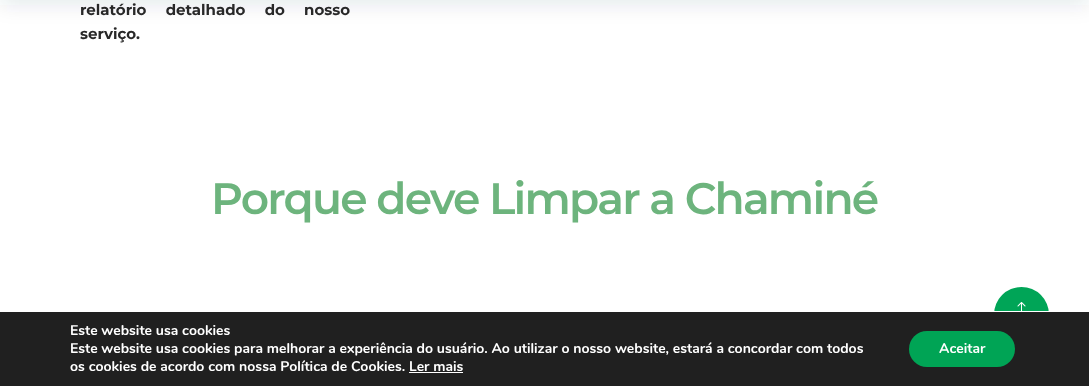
<svg xmlns="http://www.w3.org/2000/svg" width="1089" height="386" viewBox="0 0 1089 386">
  <defs>
    <filter id="blur1" x="-50%" y="-200%" width="200%" height="500%"><feGaussianBlur stdDeviation="10"/></filter>
  </defs>
  <rect width="100%" height="100%" fill="#ffffff"/>
  <rect x="0" y="-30" width="1089" height="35" fill="#172c52" fill-opacity="0.1" filter="url(#blur1)"/>
  <text x="80" y="15" word-spacing="15" font-family="Montserrat" font-size="15" font-weight="bold" fill="#282828">relatório detalhado do nosso</text>
  <text x="80" y="39" font-family="Montserrat" font-size="15" font-weight="bold" fill="#282828">serviço.</text>
  <text x="211" y="214" font-family="Montserrat" font-size="44" font-weight="600" letter-spacing="-1.75" fill="#6db47d">Porque deve Limpar a Chaminé</text>
  <circle cx="1021.5" cy="314.5" r="27.5" fill="#00a557"/>
  <image x="1017" y="302" width="9" height="9" href="img1.png"/>
  <rect x="0" y="312" width="1089" height="74" fill="#202020"/>
  <rect x="994" y="311" width="55" height="1" fill="#ffffff"/>
  <text x="70" y="335" font-family="Nunito" font-size="14" font-weight="bold" fill="#ffffff">Este website usa cookies</text>
  <text x="70" y="353" font-family="Nunito" font-size="14" font-weight="bold" fill="#ffffff">Este website usa cookies para melhorar a experiência do usuário. Ao utilizar o nosso website, estará a concordar com todos</text>
  <text x="70" y="371" font-family="Nunito" font-size="14" font-weight="bold" fill="#ffffff">os cookies de acordo com nossa Política de Cookies. Ler mais</text>
  <rect x="409" y="372" width="54" height="1" fill="#ffffff"/>
  <rect x="909" y="331" width="106" height="36" rx="18" fill="#00a455"/>
  <text x="939" y="353" font-family="Nunito" font-size="14" font-weight="bold" fill="#ffffff">Aceitar</text>
</svg>
